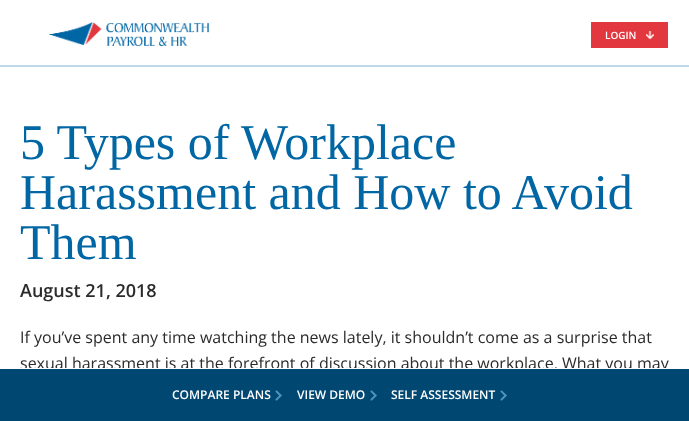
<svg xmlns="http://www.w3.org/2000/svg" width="689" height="421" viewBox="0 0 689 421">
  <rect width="100%" height="100%" fill="#ffffff"/>
  <rect x="0" y="65" width="689" height="2" fill="#bfd9e9"/>
  <image x="49" y="22" width="160" height="24" href="img1.png"/>
  <rect x="591" y="22" width="77" height="26" fill="#e3373f"/>
  <text x="605" y="39" font-family="Open Sans" font-size="10" font-weight="600" fill="#ffffff">LOGIN</text>
  <image x="646" y="31" width="8" height="8" href="img2.png"/>
  <text x="20" y="159" font-family="Liberation Serif" font-size="50" fill="#0066a4">5 Types of Workplace</text>
  <text x="20" y="209" font-family="Liberation Serif" font-size="50" fill="#0066a4">Harassment and How to Avoid</text>
  <text x="20" y="259" font-family="Liberation Serif" font-size="50" fill="#0066a4">Them</text>
  <text x="20" y="297" font-family="Open Sans" font-size="18" font-weight="600" fill="#2b2b2b">August 21, 2018</text>
  <text x="20" y="343" font-family="Open Sans" font-size="16" fill="#2b2b2b">If you’ve spent any time watching the news lately, it shouldn’t come as a surprise that</text>
  <text x="20" y="369" font-family="Open Sans" font-size="16" fill="#2b2b2b">sexual harassment is at the forefront of discussion about the workplace. What you may</text>
  <rect x="0" y="369" width="689" height="52" fill="#004772"/>
  <rect x="20" y="368" width="646" height="1" fill="#ffffff"/>
  <text x="172" y="399" font-family="Open Sans" font-size="12" font-weight="600" fill="#ffffff">COMPARE PLANS</text>
  <image x="275" y="390" width="7" height="11" href="img3.png"/>
  <text x="297" y="399" font-family="Open Sans" font-size="12" font-weight="600" fill="#ffffff">VIEW DEMO</text>
  <image x="370" y="390" width="7" height="11" href="img3.png"/>
  <text x="391" y="399" font-family="Open Sans" font-size="12" font-weight="600" fill="#ffffff">SELF ASSESSMENT</text>
  <image x="500" y="390" width="7" height="11" href="img3.png"/>
</svg>
